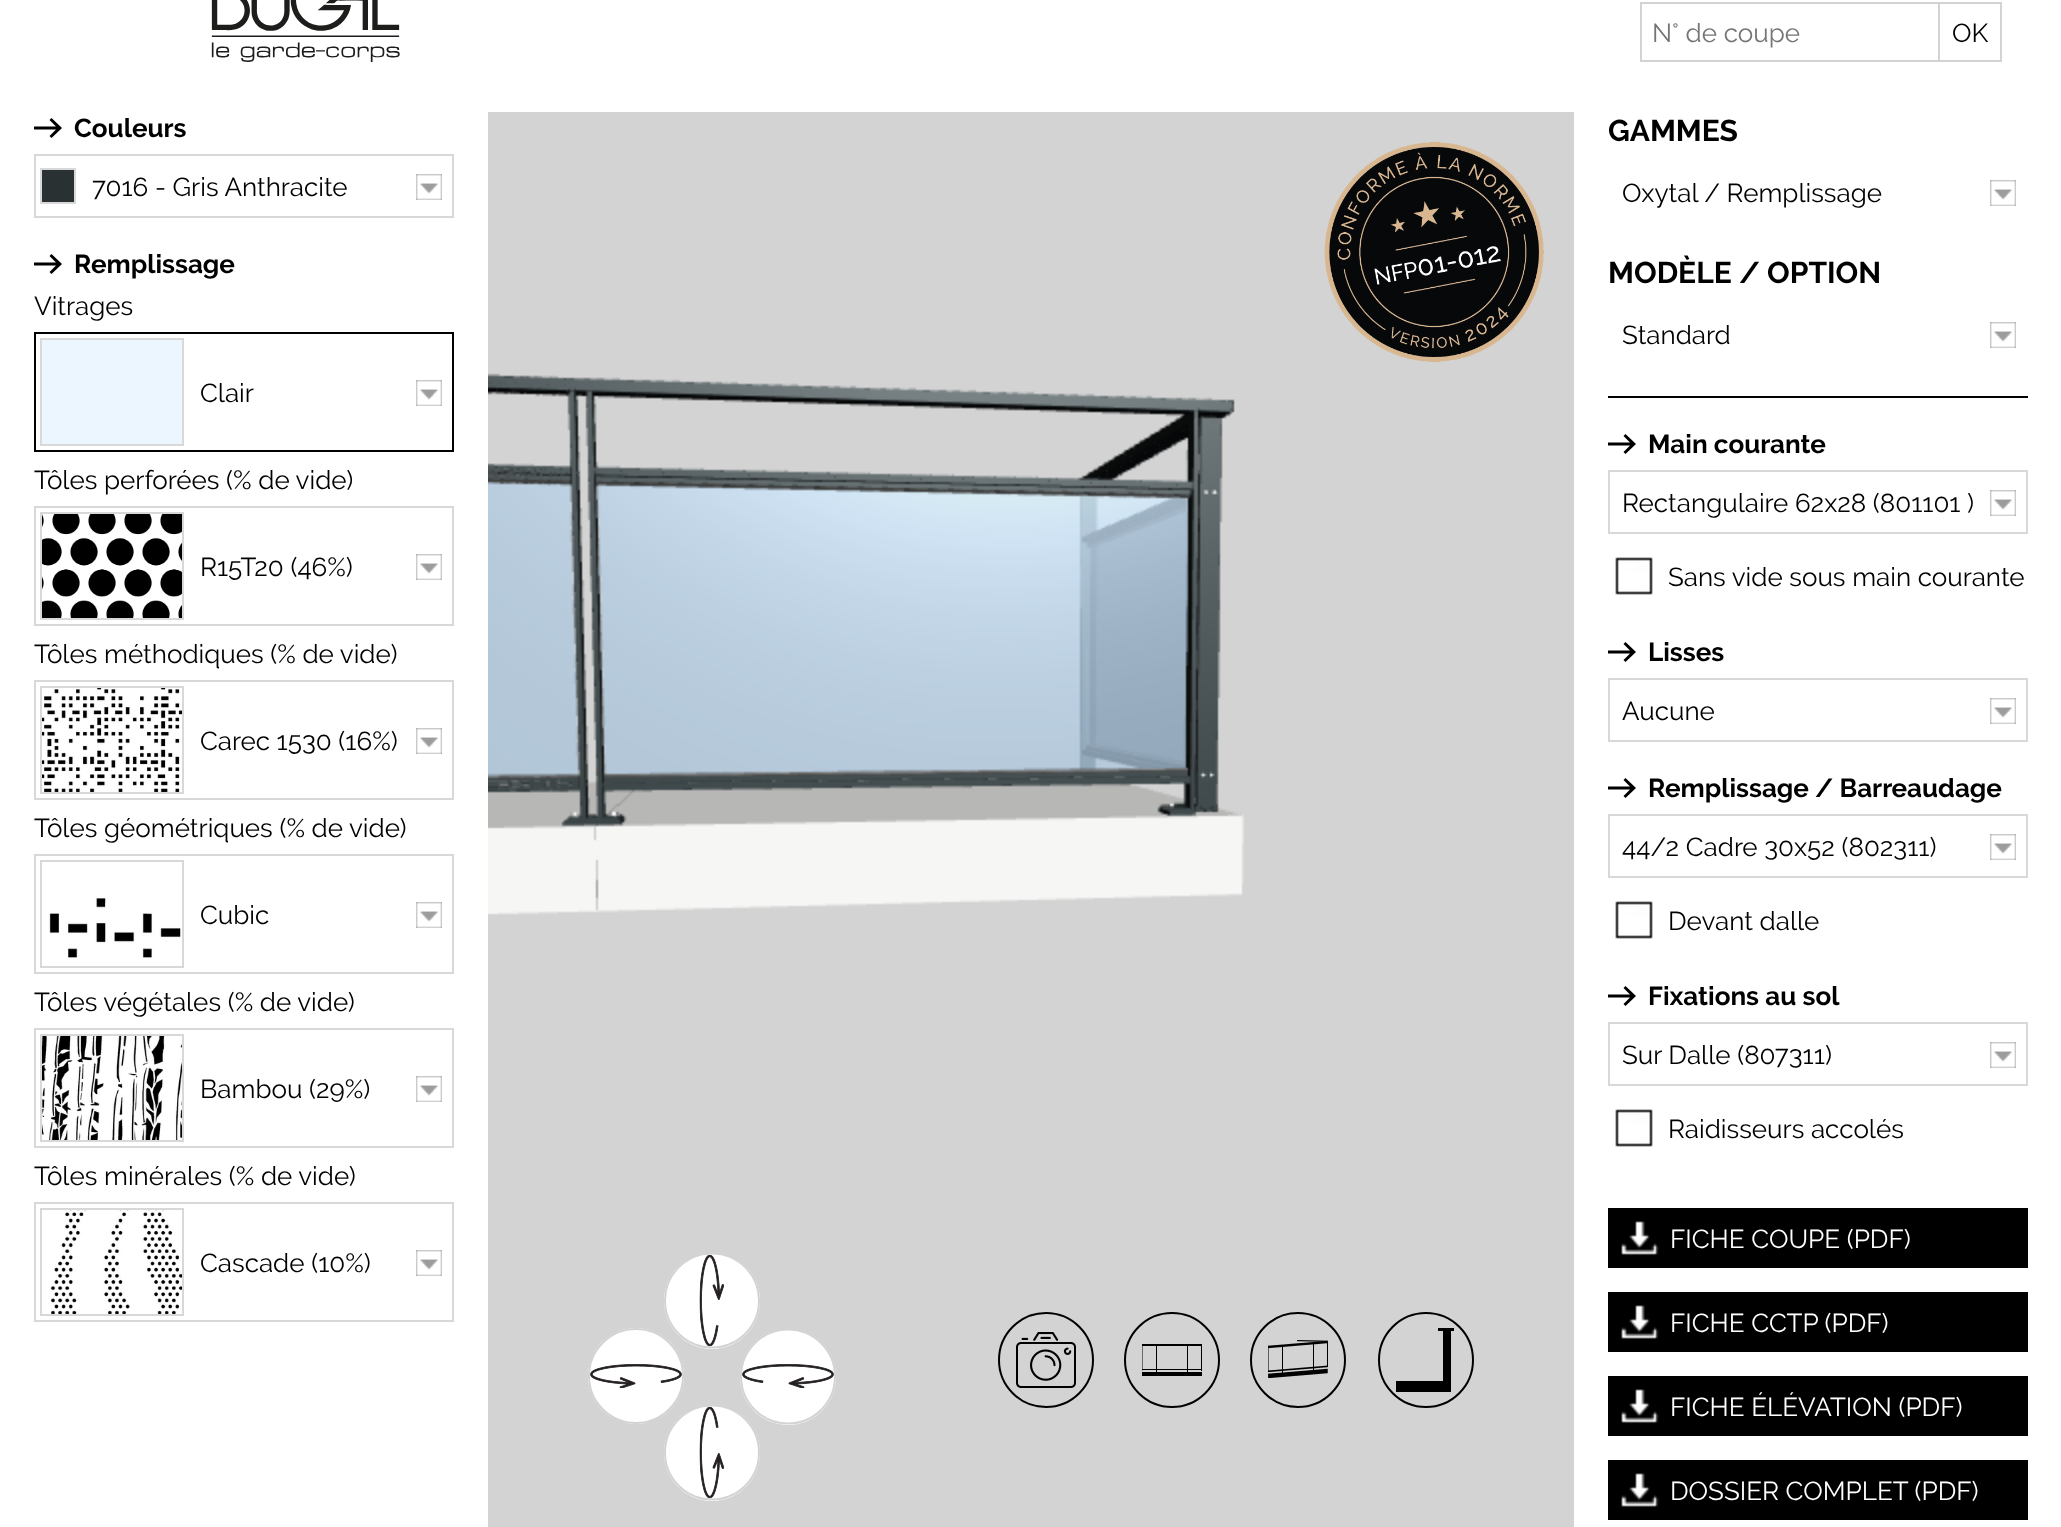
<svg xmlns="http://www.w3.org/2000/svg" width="2061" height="1527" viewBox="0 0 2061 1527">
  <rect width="100%" height="100%" fill="#ffffff"/>
  <image x="211" y="0" width="189" height="62" href="img1.png"/>
  <rect x="1641" y="3" width="298" height="58" fill="none" stroke="#d3d3d3" stroke-width="2"/>
  <text x="1652" y="42" font-family="Raleway" font-size="26" fill="#757575">N° de coupe</text>
  <rect x="1939" y="3" width="62" height="58" fill="none" stroke="#d3d3d3" stroke-width="2"/>
  <text x="1952" y="42" font-family="Raleway" font-size="26" fill="#000000">OK</text>
  <path d="M49.5 120L56 126.5H34V129.5H56L49.5 136L51.5 138L62 128L51.5 118Z" fill="#000000"/>
  <text x="74" y="137" font-family="Raleway" font-size="26" font-weight="bold" fill="#000000">Couleurs</text>
  <image x="416" y="174" width="26" height="26" href="img2.png"/>
  <rect x="35" y="155" width="418" height="62" fill="none" stroke="#d8d8d8" stroke-width="2"/>
  <rect x="41" y="169" width="34" height="34" fill="#293133" stroke="#d8d8d8" stroke-width="2"/>
  <text x="92" y="196" font-family="Raleway" font-size="26" fill="#000000">7016 - Gris Anthracite</text>
  <path d="M49.5 256L56 262.5H34V265.5H56L49.5 272L51.5 274L62 264L51.5 254Z" fill="#000000"/>
  <text x="74" y="273" font-family="Raleway" font-size="26" font-weight="bold" fill="#000000">Remplissage</text>
  <text x="34" y="315" font-family="Raleway" font-size="26" fill="#000000">Vitrages</text>
  <image x="416" y="380" width="26" height="26" href="img2.png"/>
  <rect x="35" y="333" width="418" height="118" fill="none" stroke="#000000" stroke-width="2"/>
  <rect x="41" y="339" width="142" height="106" fill="#ebf6ff" stroke="#d8d8d8" stroke-width="2"/>
  <text x="200" y="402" font-family="Raleway" font-size="26" fill="#000000">Clair</text>
  <text x="34" y="489" font-family="Raleway" font-size="26" fill="#000000">Tôles perforées (% de vide)</text>
  <image x="416" y="554" width="26" height="26" href="img2.png"/>
  <rect x="35" y="507" width="418" height="118" fill="none" stroke="#d8d8d8" stroke-width="2"/>
  <image x="42" y="514" width="140" height="104" href="img3.png"/>
  <rect x="41" y="513" width="142" height="106" fill="none" stroke="#d8d8d8" stroke-width="2"/>
  <text x="200" y="576" font-family="Raleway" font-size="26" fill="#000000">R15T20 (46%)</text>
  <text x="34" y="663" font-family="Raleway" font-size="26" fill="#000000">Tôles méthodiques (% de vide)</text>
  <image x="416" y="728" width="26" height="26" href="img2.png"/>
  <rect x="35" y="681" width="418" height="118" fill="none" stroke="#d8d8d8" stroke-width="2"/>
  <image x="42" y="688" width="140" height="104" href="img4.png"/>
  <rect x="41" y="687" width="142" height="106" fill="none" stroke="#d8d8d8" stroke-width="2"/>
  <text x="200" y="750" font-family="Raleway" font-size="26" fill="#000000">Carec 1530 (16%)</text>
  <text x="34" y="837" font-family="Raleway" font-size="26" fill="#000000">Tôles géométriques (% de vide)</text>
  <image x="416" y="902" width="26" height="26" href="img2.png"/>
  <rect x="35" y="855" width="418" height="118" fill="none" stroke="#d8d8d8" stroke-width="2"/>
  <image x="42" y="898" width="139" height="60" href="img5.png"/>
  <rect x="41" y="861" width="142" height="106" fill="none" stroke="#d8d8d8" stroke-width="2"/>
  <text x="200" y="924" font-family="Raleway" font-size="26" fill="#000000">Cubic</text>
  <text x="34" y="1011" font-family="Raleway" font-size="26" fill="#000000">Tôles végétales (% de vide)</text>
  <image x="416" y="1076" width="26" height="26" href="img2.png"/>
  <rect x="35" y="1029" width="418" height="118" fill="none" stroke="#d8d8d8" stroke-width="2"/>
  <image x="42" y="1036" width="140" height="104" href="img6.png"/>
  <rect x="41" y="1035" width="142" height="106" fill="none" stroke="#d8d8d8" stroke-width="2"/>
  <text x="200" y="1098" font-family="Raleway" font-size="26" fill="#000000">Bambou (29%)</text>
  <text x="34" y="1185" font-family="Raleway" font-size="26" fill="#000000">Tôles minérales (% de vide)</text>
  <image x="416" y="1250" width="26" height="26" href="img2.png"/>
  <rect x="35" y="1203" width="418" height="118" fill="none" stroke="#d8d8d8" stroke-width="2"/>
  <image x="51" y="1210" width="131" height="104" href="img7.png"/>
  <rect x="41" y="1209" width="142" height="106" fill="none" stroke="#d8d8d8" stroke-width="2"/>
  <text x="200" y="1272" font-family="Raleway" font-size="26" fill="#000000">Cascade (10%)</text>
  <image x="488" y="112" width="1086" height="1415" href="img8.png"/>
  <image x="1324" y="142" width="220" height="220" href="img9.png"/>
  <circle cx="636" cy="1376" r="48" fill="#ffffff"/>
  <image x="590" y="1364" width="92" height="24" href="img11.png"/>
  <circle cx="636" cy="1376" r="47" fill="none" stroke="#d3d3d3" stroke-width="2"/>
  <path d="M788 1329C761 1329 740 1350 740 1377C740 1403 761 1425 788 1425C815 1425 836 1403 836 1377C836 1350 815 1329 788 1329Z" fill="#ffffff"/>
  <image x="742" y="1364" width="92" height="24" href="img12.png"/>
  <path d="M788 1329.5C762 1329.5 741 1350.5 741 1376.5C741 1402.5 762 1423.5 788 1423.5C814 1423.5 835 1402.5 835 1376.5C835 1350.5 814 1329.5 788 1329.5Z" fill="none" stroke="#d3d3d3" stroke-width="2"/>
  <path d="M664 1301C664 1327 685 1349 712 1349C739 1349 760 1327 760 1301C760 1274 739 1253 712 1253C685 1253 664 1274 664 1301Z" fill="#ffffff"/>
  <image x="699" y="1254" width="26" height="93" href="img10.png"/>
  <path d="M665 1300.5C665 1326.5 686 1347.5 712 1347.5C738 1347.5 759 1326.5 759 1300.5C759 1274.5 738 1253.5 712 1253.5C686 1253.5 665 1274.5 665 1300.5Z" fill="none" stroke="#d3d3d3" stroke-width="2"/>
  <path d="M664 1453C664 1426 685 1405 712 1405C739 1405 760 1426 760 1453C760 1479 739 1501 712 1501C685 1501 664 1479 664 1453Z" fill="#ffffff"/>
  <image x="699" y="1406" width="26" height="93" href="img13.png"/>
  <path d="M665 1452.5C665 1426.5 686 1405.5 712 1405.5C738 1405.5 759 1426.5 759 1452.5C759 1478.5 738 1499.5 712 1499.5C686 1499.5 665 1478.5 665 1452.5Z" fill="none" stroke="#d3d3d3" stroke-width="2"/>
  <image x="1016" y="1332" width="60" height="56" href="img14.png"/>
  <circle cx="1046" cy="1360" r="47" fill="none" stroke="#000000" stroke-width="2"/>
  <rect x="1142" y="1344" width="60" height="2" fill="#000000"/>
  <rect x="1142" y="1369" width="60" height="1" fill="#000000"/>
  <rect x="1142" y="1372" width="60" height="4" fill="#000000"/>
  <rect x="1156" y="1345" width="1" height="31" fill="#000000"/>
  <path d="M1142.5 1344V1370.5H1142V1344Z" fill="#000000"/>
  <rect x="1201" y="1344" width="1" height="27" fill="#000000"/>
  <rect x="1187" y="1345" width="1" height="31" fill="#000000"/>
  <circle cx="1172" cy="1360" r="47" fill="none" stroke="#000000" stroke-width="2"/>
  <image x="1268" y="1340" width="60" height="38" href="img15.png"/>
  <circle cx="1298" cy="1360" r="47" fill="none" stroke="#000000" stroke-width="2"/>
  <rect x="1438" y="1328" width="16" height="3" fill="#000000"/>
  <rect x="1396" y="1381" width="55" height="11" fill="#000000"/>
  <rect x="1443" y="1331" width="8" height="50" fill="#000000"/>
  <circle cx="1426" cy="1360" r="47" fill="none" stroke="#000000" stroke-width="2"/>
  <text x="1608" y="141" font-family="Raleway" font-size="30" font-weight="bold" fill="#000000">GAMMES</text>
  <image x="1990" y="180" width="26" height="26" href="img16.png"/>
  <text x="1622" y="202" font-family="Raleway" font-size="26" fill="#000000">Oxytal / Remplissage</text>
  <text x="1608" y="283" font-family="Raleway" font-size="30" font-weight="bold" fill="#000000">MODÈLE / OPTION</text>
  <image x="1990" y="322" width="26" height="26" href="img16.png"/>
  <text x="1622" y="344" font-family="Raleway" font-size="26" fill="#000000">Standard</text>
  <rect x="1608" y="396" width="420" height="2" fill="#000000"/>
  <path d="M1623.5 436L1630 442.5H1608V445.5H1630L1623.5 452L1625.5 454L1636 444L1625.5 434Z" fill="#000000"/>
  <text x="1648" y="453" font-family="Raleway" font-size="26" font-weight="bold" fill="#000000">Main courante</text>
  <image x="1990" y="490" width="26" height="26" href="img16.png"/>
  <rect x="1609" y="471" width="418" height="62" fill="none" stroke="#d8d8d8" stroke-width="2"/>
  <text x="1622" y="512" font-family="Raleway" font-size="26" fill="#000000">Rectangulaire 62x28 (801101 )</text>
  <image x="1615" y="557" width="38" height="38" href="img17.png"/>
  <text x="1668" y="586" font-family="Raleway" font-size="26" fill="#000000">Sans vide sous main courante</text>
  <path d="M1623.5 644L1630 650.5H1608V653.5H1630L1623.5 660L1625.5 662L1636 652L1625.5 642Z" fill="#000000"/>
  <text x="1648" y="661" font-family="Raleway" font-size="26" font-weight="bold" fill="#000000">Lisses</text>
  <image x="1990" y="698" width="26" height="26" href="img16.png"/>
  <rect x="1609" y="679" width="418" height="62" fill="none" stroke="#d8d8d8" stroke-width="2"/>
  <text x="1622" y="720" font-family="Raleway" font-size="26" fill="#000000">Aucune</text>
  <path d="M1623.5 780L1630 786.5H1608V789.5H1630L1623.5 796L1625.5 798L1636 788L1625.5 778Z" fill="#000000"/>
  <text x="1648" y="797" font-family="Raleway" font-size="26" font-weight="bold" fill="#000000">Remplissage / Barreaudage</text>
  <image x="1990" y="834" width="26" height="26" href="img16.png"/>
  <rect x="1609" y="815" width="418" height="62" fill="none" stroke="#d8d8d8" stroke-width="2"/>
  <text x="1622" y="856" font-family="Raleway" font-size="26" fill="#000000">44/2 Cadre 30x52 (802311)</text>
  <image x="1615" y="901" width="38" height="38" href="img17.png"/>
  <text x="1668" y="930" font-family="Raleway" font-size="26" fill="#000000">Devant dalle</text>
  <path d="M1623.5 988L1630 994.5H1608V997.5H1630L1623.5 1004L1625.5 1006L1636 996L1625.5 986Z" fill="#000000"/>
  <text x="1648" y="1005" font-family="Raleway" font-size="26" font-weight="bold" fill="#000000">Fixations au sol</text>
  <image x="1990" y="1042" width="26" height="26" href="img16.png"/>
  <rect x="1609" y="1023" width="418" height="62" fill="none" stroke="#d8d8d8" stroke-width="2"/>
  <text x="1622" y="1064" font-family="Raleway" font-size="26" fill="#000000">Sur Dalle (807311)</text>
  <image x="1615" y="1109" width="38" height="38" href="img17.png"/>
  <text x="1668" y="1138" font-family="Raleway" font-size="26" fill="#000000">Raidisseurs accolés</text>
  <rect x="1608" y="1208" width="420" height="60" fill="#000000"/>
  <image x="1621" y="1221" width="38" height="35" href="img18.png"/>
  <text x="1670" y="1248" font-family="Raleway" font-size="26" fill="#ffffff">FICHE COUPE (PDF)</text>
  <rect x="1608" y="1292" width="420" height="60" fill="#000000"/>
  <image x="1621" y="1305" width="38" height="35" href="img18.png"/>
  <text x="1670" y="1332" font-family="Raleway" font-size="26" fill="#ffffff">FICHE CCTP (PDF)</text>
  <rect x="1608" y="1376" width="420" height="60" fill="#000000"/>
  <image x="1621" y="1389" width="38" height="35" href="img18.png"/>
  <text x="1670" y="1416" font-family="Raleway" font-size="26" fill="#ffffff">FICHE ÉLÉVATION (PDF)</text>
  <rect x="1608" y="1460" width="420" height="60" fill="#000000"/>
  <image x="1621" y="1473" width="38" height="35" href="img18.png"/>
  <text x="1670" y="1500" font-family="Raleway" font-size="26" fill="#ffffff">DOSSIER COMPLET (PDF)</text>
</svg>
